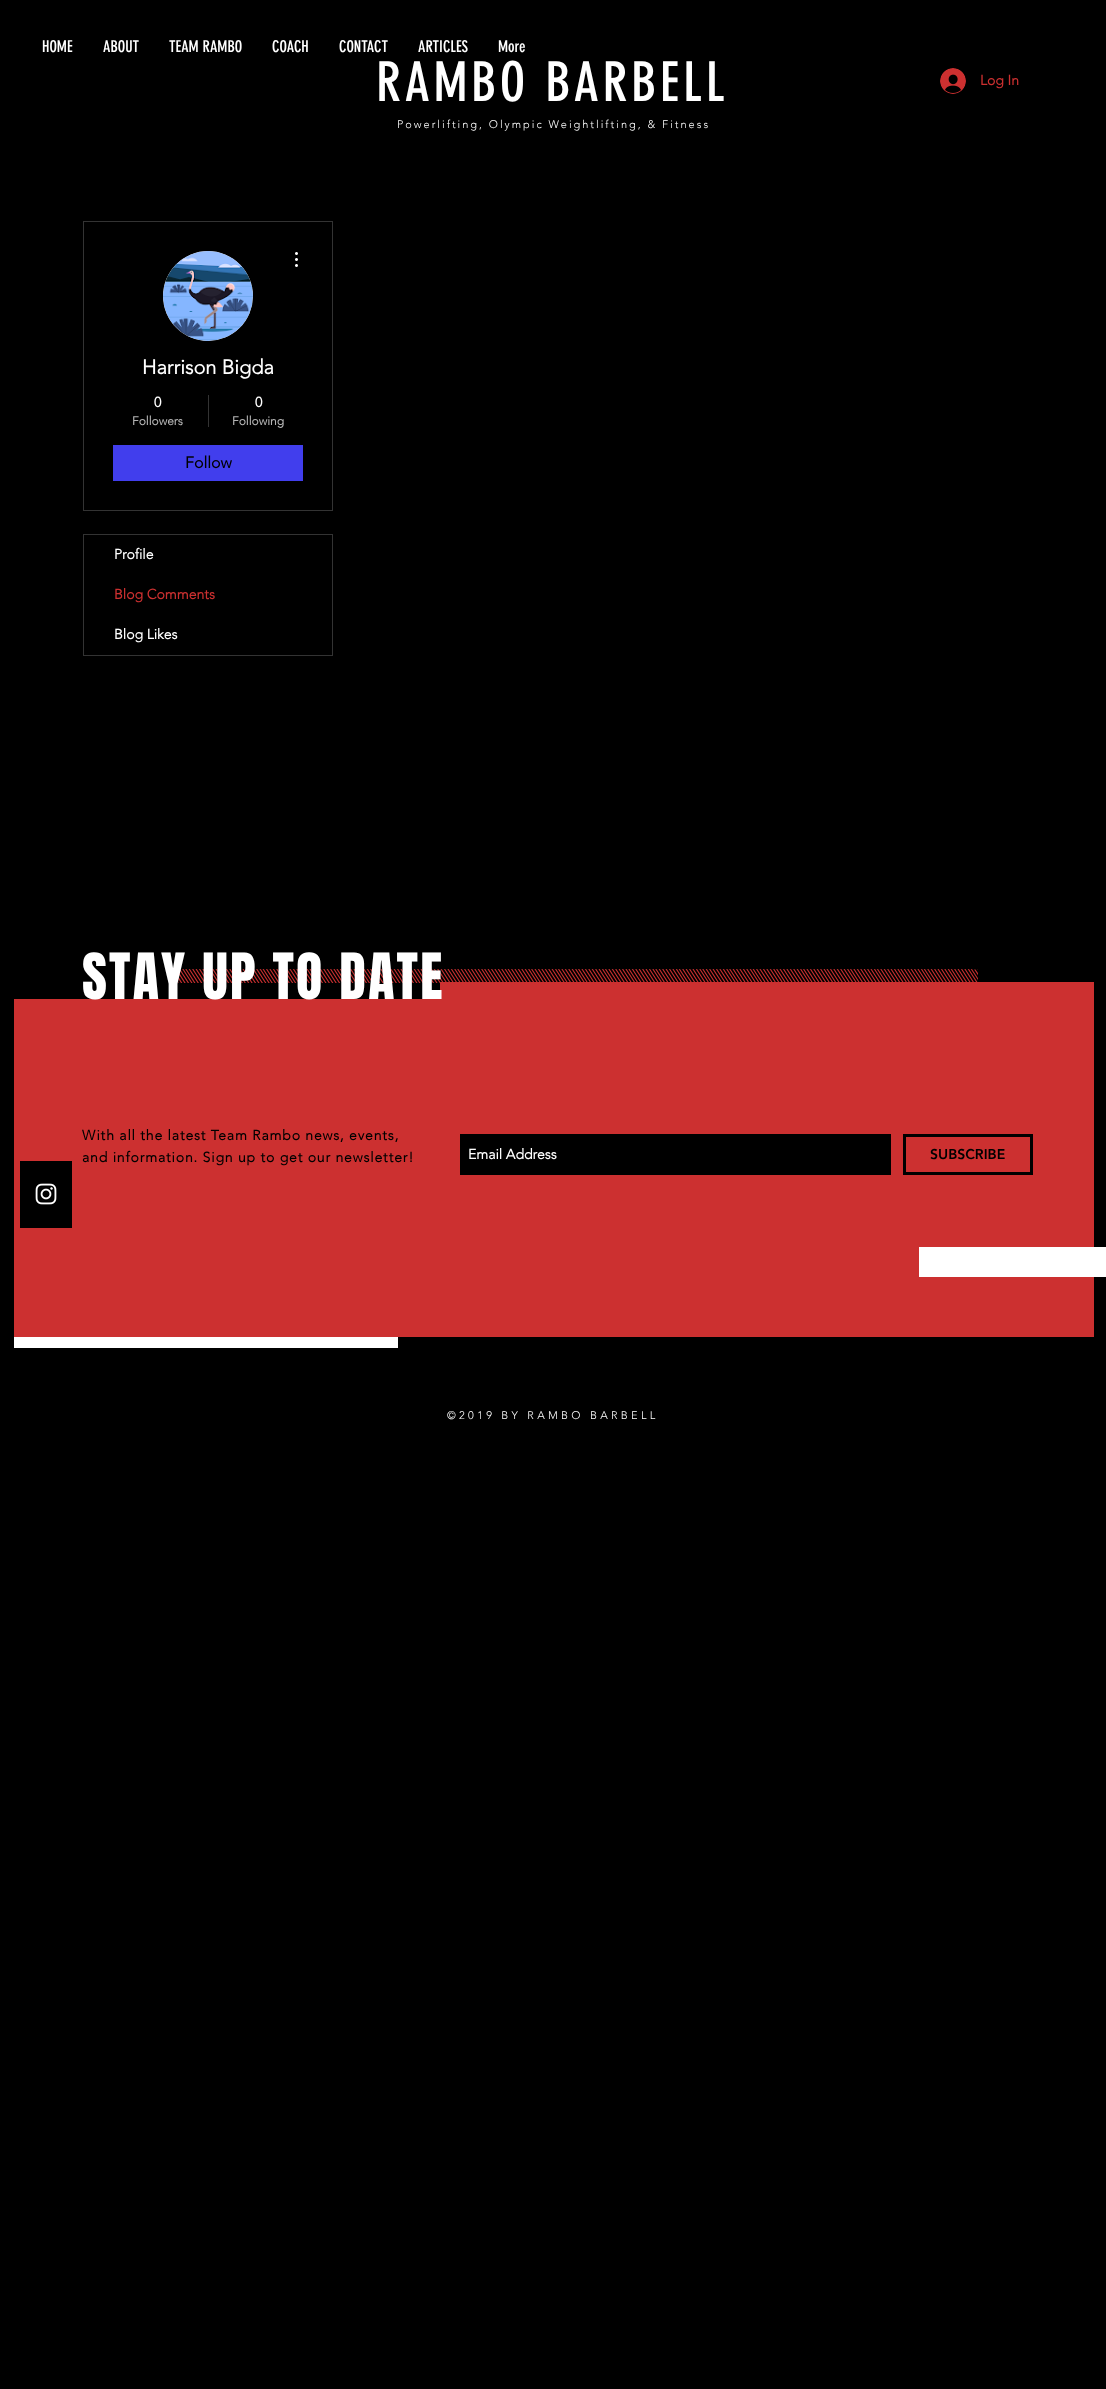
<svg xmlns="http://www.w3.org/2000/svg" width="1106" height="2389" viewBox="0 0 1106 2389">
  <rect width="100%" height="100%" fill="#000000"/>
  <text x="42" y="52" font-family="'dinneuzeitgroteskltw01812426'" font-size="16" fill="#ffffff">HOME</text>
  <text x="103" y="52" font-family="'dinneuzeitgroteskltw01812426'" font-size="16" fill="#ffffff">ABOUT</text>
  <text x="169" y="52" font-family="'dinneuzeitgroteskltw01812426'" font-size="16" fill="#ffffff">TEAM RAMBO</text>
  <text x="272" y="52" font-family="'dinneuzeitgroteskltw01812426'" font-size="16" fill="#ffffff">COACH</text>
  <text x="339" y="52" font-family="'dinneuzeitgroteskltw01812426'" font-size="16" fill="#ffffff">CONTACT</text>
  <text x="418" y="52" font-family="'dinneuzeitgroteskltw01812426'" font-size="16" fill="#ffffff">ARTICLES</text>
  <text x="498" y="52" font-family="'dinneuzeitgroteskltw01812426'" font-size="16" fill="#ffffff">More</text>
  <text x="376" y="101" font-family="'dinneuzeitgroteskltw01812426'" font-size="54" letter-spacing="3.75" fill="#ffffff">RAMBO BARBELL</text>
  <image x="940" y="68" width="26" height="26" href="img1.png"/>
  <text x="980" y="85" font-family="'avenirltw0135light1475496'" font-size="14" font-weight="bold" fill="#cc3030">Log In</text>
  <text x="397" y="128" font-family="'avenirltw0135light1475496'" font-size="11" font-weight="300" letter-spacing="2" fill="#ffffff">Powerlifting, Olympic Weightlifting, &amp; Fitness</text>
  <rect x="83.5" y="221.5" width="249" height="289" fill="none" stroke="#333333"/>
  <circle cx="208" cy="296" r="45" fill="#d8d8d8"/>
  <image x="163" y="251" width="90" height="90" href="img2.png"/>
  <image x="295" y="252" width="3" height="15" href="img3.png"/>
  <text x="142" y="374" font-family="'avenirltw0135light1475496'" font-size="20" font-weight="bold" fill="#ffffff">Harrison Bigda</text>
  <text x="154" y="407" font-family="'avenirltw0135light1475496'" font-size="14" font-weight="bold" fill="#ffffff">0</text>
  <text x="132" y="425" font-family="'avenirltw0135light1475496'" font-size="12" font-weight="bold" fill="#b3b3b3">Followers</text>
  <rect x="208" y="395" width="1" height="32" fill="#333333"/>
  <text x="255" y="407" font-family="'avenirltw0135light1475496'" font-size="14" font-weight="bold" fill="#ffffff">0</text>
  <text x="232" y="425" font-family="'avenirltw0135light1475496'" font-size="12" font-weight="bold" fill="#b3b3b3">Following</text>
  <rect x="113" y="445" width="190" height="36" fill="#413eed"/>
  <text x="185" y="468" font-family="'avenirltw0135light1475496'" font-size="16" font-weight="bold" fill="#000000">Follow</text>
  <rect x="83.5" y="534.5" width="249" height="121" fill="none" stroke="#333333"/>
  <text x="114" y="559" font-family="'avenirltw0135light1475496'" font-size="14" font-weight="bold" fill="#ffffff">Profile</text>
  <text x="114" y="599" font-family="'avenirltw0135light1475496'" font-size="14" font-weight="bold" fill="#cc3030">Blog Comments</text>
  <text x="114" y="639" font-family="'avenirltw0135light1475496'" font-size="14" font-weight="bold" fill="#ffffff">Blog Likes</text>
  <rect x="14" y="982" width="1080" height="355" fill="#cc3030"/>
  <rect x="20" y="1161" width="52" height="67" fill="#000000"/>
  <image x="35" y="1183" width="22" height="22" href="img4.png"/>
  <rect x="14" y="982" width="426" height="17" fill="#000000"/>
  <image x="178" y="969" width="800" height="14" href="img5.png"/>
  <text x="82" y="999" font-family="Anton" font-size="54" letter-spacing="2.2" fill="#ffffff">STAY UP TO DATE</text>
  <text x="82" y="1140" font-family="'avenirltw0135light1475496'" font-size="14" font-weight="bold" letter-spacing="0.85" fill="#000000">With all the latest Team Rambo news, events,</text>
  <text x="82" y="1162" font-family="'avenirltw0135light1475496'" font-size="14" font-weight="bold" letter-spacing="0.85" fill="#000000">and information. Sign up to get our newsletter!</text>
  <rect x="460" y="1134" width="431" height="41" fill="#000000"/>
  <text x="468" y="1159" font-family="'avenirltw0135light1475496'" font-size="14" font-weight="bold" fill="#ffffff">Email Address</text>
  <rect x="904.5" y="1135.5" width="127" height="38" fill="none" stroke="#000000" stroke-width="3"/>
  <text x="930" y="1159" font-family="'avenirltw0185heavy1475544'" font-size="14" font-weight="900" fill="#000000">SUBSCRIBE</text>
  <rect x="919" y="1247" width="187" height="30" fill="#ffffff"/>
  <rect x="14" y="1337" width="384" height="11" fill="#ffffff"/>
  <text x="447" y="1419" font-family="'avenirltw0135light1475496'" font-size="11" font-weight="300" letter-spacing="3.3" fill="#ffffff">©2019 BY RAMBO BARBELL</text>
</svg>
